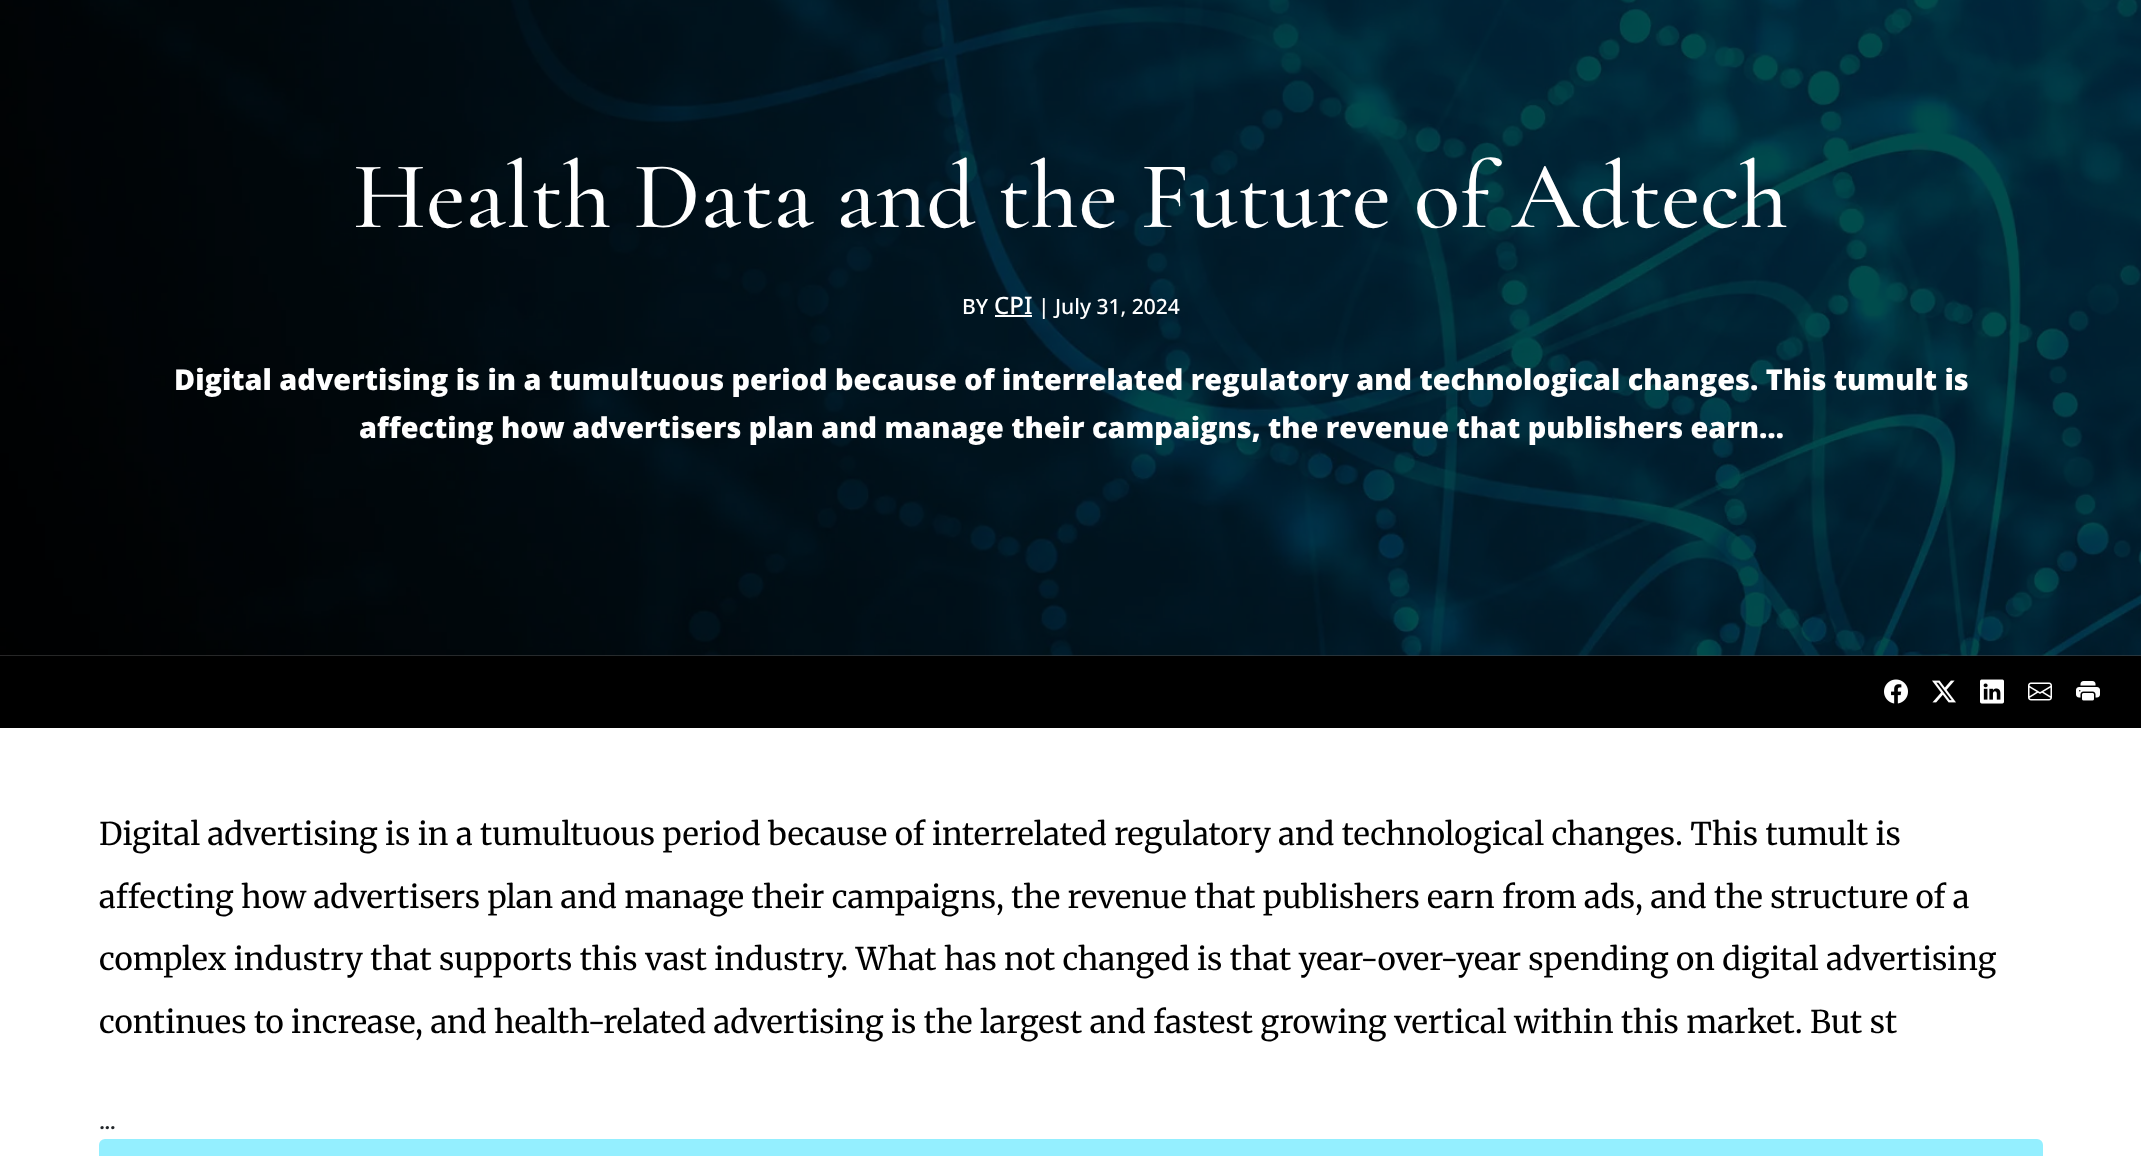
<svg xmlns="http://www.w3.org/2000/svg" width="2141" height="1156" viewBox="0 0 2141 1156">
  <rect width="100%" height="100%" fill="#ffffff"/>
  <rect x="0" y="655" width="2141" height="1" fill="#4d4d4d"/>
  <image x="0" y="0" width="2141" height="656" href="img1.png"/>
  <text x="353" y="227" font-family="Cormorant Garamond" font-size="96" font-weight="500" fill="#ffffff">Health Data and the Future of Adtech</text>
  <text x="962" y="314" font-family="Noto Sans" font-size="21" font-weight="500" fill="#ffffff">BY</text>
  <text x="994" y="314" font-family="Noto Sans" font-size="24" font-weight="500" fill="#ffffff">CPI</text>
  <rect x="995" y="315" width="37" height="2" fill="#ffffff"/>
  <text x="1038" y="314" font-family="Noto Sans" font-size="21" font-weight="500" fill="#ffffff">| July 31, 2024</text>
  <text x="174" y="390" font-family="Open Sans" font-size="28.8" font-weight="800" fill="#ffffff">Digital advertising is in a tumultuous period because of interrelated regulatory and technological changes. This tumult is</text>
  <text x="359" y="438" font-family="Open Sans" font-size="28.8" font-weight="800" fill="#ffffff">affecting how advertisers plan and manage their campaigns, the revenue that publishers earn…</text>
  <rect x="0" y="656" width="2141" height="72" fill="#000000"/>
  <image x="1884" y="679" width="24" height="25" href="img2.png"/>
  <image x="1932" y="680" width="24" height="23" href="img3.png"/>
  <image x="1980" y="679" width="24" height="25" href="img4.png"/>
  <image x="2028" y="682" width="24" height="19" href="img5.png"/>
  <image x="2076" y="681" width="24" height="20" href="img6.png"/>
  <text x="99" y="845" font-family="Merriweather" font-size="31.2" fill="#000000">Digital advertising is in a tumultuous period because of interrelated regulatory and technological changes. This tumult is</text>
  <text x="99" y="908" font-family="Merriweather" font-size="31.2" fill="#000000">affecting how advertisers plan and manage their campaigns, the revenue that publishers earn from ads, and the structure of a</text>
  <text x="99" y="970" font-family="Merriweather" font-size="31.2" fill="#000000">complex industry that supports this vast industry. What has not changed is that year-over-year spending on digital advertising</text>
  <text x="99" y="1033" font-family="Merriweather" font-size="31.2" fill="#000000">continues to increase, and health-related advertising is the largest and fastest growing vertical within this market. But st</text>
  <text x="99" y="1129" font-family="Merriweather" font-size="24" fill="#212529">...</text>
  <rect x="99" y="1139" width="1944" height="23" rx="6" fill="#94efff"/>
</svg>
